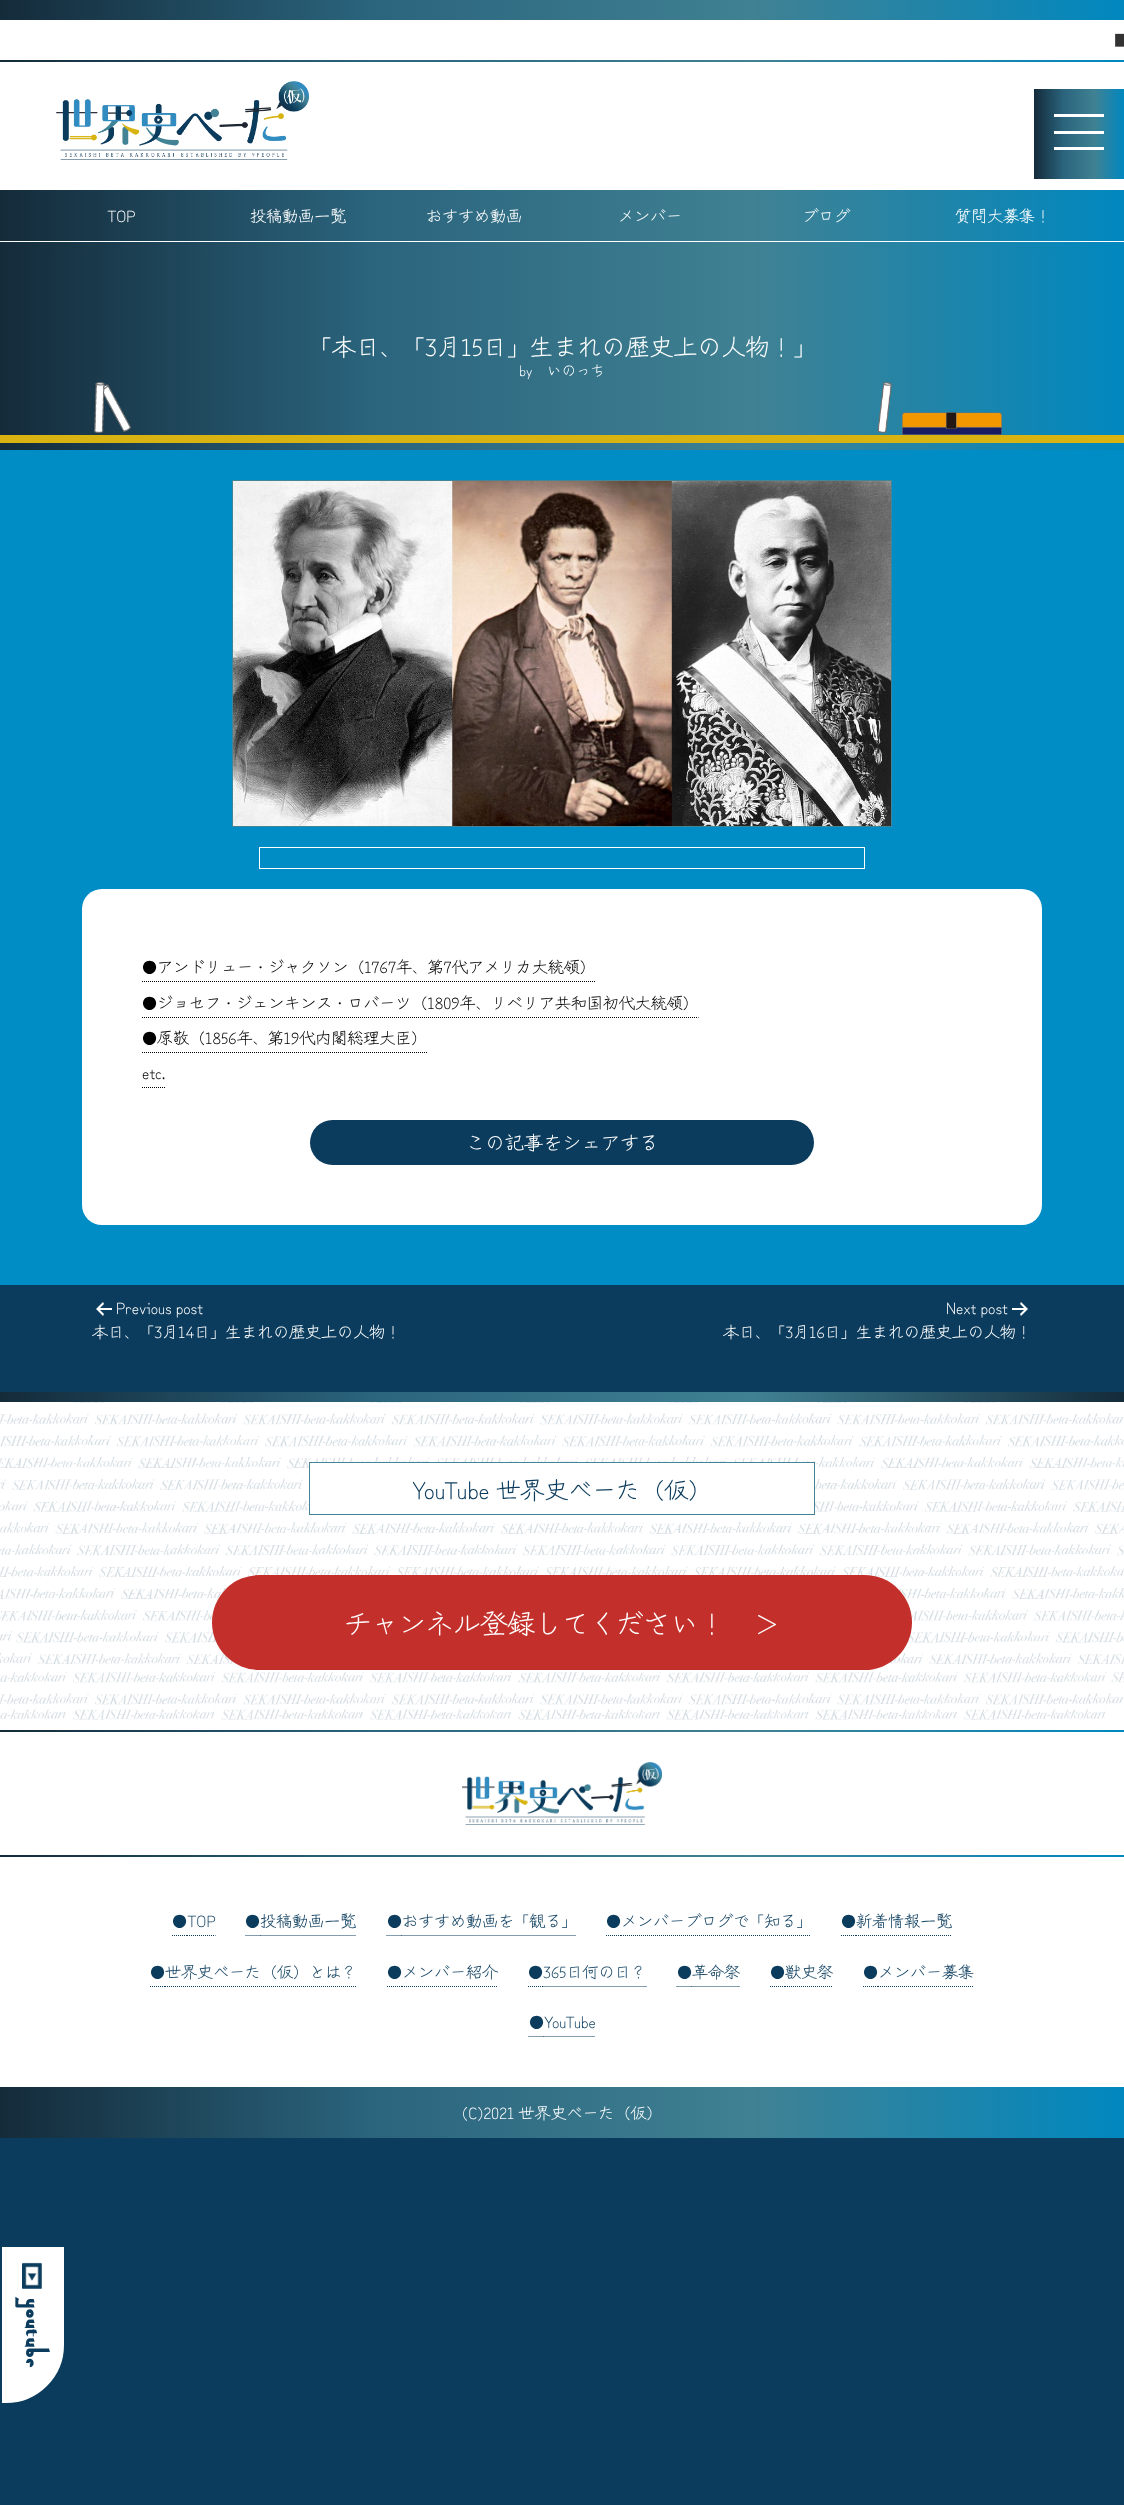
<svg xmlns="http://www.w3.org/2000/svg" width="1124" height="2505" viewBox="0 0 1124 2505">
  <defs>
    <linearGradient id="g1" gradientUnits="userSpaceOnUse" x1="0" y1="10" x2="1124" y2="10"><stop offset="0" stop-color="#142b3a"/><stop offset="0.33" stop-color="#2a647d"/><stop offset="0.67" stop-color="#408193"/><stop offset="1" stop-color="#0088bf"/></linearGradient>
    <linearGradient id="g2" gradientUnits="userSpaceOnUse" x1="0" y1="61" x2="1124" y2="61"><stop offset="0" stop-color="#142b3a"/><stop offset="0.33" stop-color="#2a647d"/><stop offset="0.67" stop-color="#408193"/><stop offset="1" stop-color="#0088bf"/></linearGradient>
    <linearGradient id="g3" gradientUnits="userSpaceOnUse" x1="1034" y1="134" x2="1124" y2="134"><stop offset="0" stop-color="#142b3a"/><stop offset="0.33" stop-color="#2a647d"/><stop offset="0.67" stop-color="#408193"/><stop offset="1" stop-color="#0088bf"/></linearGradient>
    <linearGradient id="g4" gradientUnits="userSpaceOnUse" x1="0" y1="216" x2="1124" y2="215"><stop offset="0" stop-color="#142b3a"/><stop offset="0.33" stop-color="#2a647d"/><stop offset="0.67" stop-color="#408193"/><stop offset="1" stop-color="#0088bf"/></linearGradient>
    <linearGradient id="g5" gradientUnits="userSpaceOnUse" x1="0" y1="225" x2="1124" y2="225"><stop offset="0" stop-color="#142b3a"/><stop offset="0.33" stop-color="#2a647d"/><stop offset="0.67" stop-color="#408193"/><stop offset="1" stop-color="#0088bf"/></linearGradient>
    <linearGradient id="g6" gradientUnits="userSpaceOnUse" x1="0" y1="1397" x2="1124" y2="1397"><stop offset="0" stop-color="#142b3a"/><stop offset="0.33" stop-color="#2a647d"/><stop offset="0.67" stop-color="#408193"/><stop offset="1" stop-color="#142b3a"/></linearGradient>
    <linearGradient id="g7" gradientUnits="userSpaceOnUse" x1="0" y1="1731" x2="1124" y2="1731"><stop offset="0" stop-color="#142b3a"/><stop offset="0.33" stop-color="#2a647d"/><stop offset="0.67" stop-color="#408193"/><stop offset="1" stop-color="#0088bf"/></linearGradient>
    <linearGradient id="g8" gradientUnits="userSpaceOnUse" x1="0" y1="1856" x2="1124" y2="1856"><stop offset="0" stop-color="#142b3a"/><stop offset="0.33" stop-color="#2a647d"/><stop offset="0.67" stop-color="#408193"/><stop offset="1" stop-color="#0088bf"/></linearGradient>
    <linearGradient id="g9" gradientUnits="userSpaceOnUse" x1="0" y1="2113" x2="1124" y2="2113"><stop offset="0" stop-color="#142b3a"/><stop offset="0.33" stop-color="#2a647d"/><stop offset="0.67" stop-color="#408193"/><stop offset="1" stop-color="#0088bf"/></linearGradient>
  </defs>
  <rect width="100%" height="100%" fill="#0b3c5d"/>
  <rect x="0" y="1402" width="1124" height="685" fill="#ffffff"/>
  <rect x="0" y="20" width="1124" height="222" fill="#ffffff"/>
  <rect x="0" y="0" width="1124" height="20" fill="url(#g1)"/>
  <text x="1114" y="46" font-family="Zen Kurenaido" font-size="16" fill="#333333">■</text>
  <rect x="0" y="60" width="1124" height="2" fill="url(#g2)"/>
  <image x="56" y="81" width="253" height="79" href="img1.png"/>
  <rect x="1034" y="89" width="90" height="90" fill="url(#g3)"/>
  <rect x="1054" y="114" width="50" height="3" fill="#ffffff"/>
  <rect x="1054" y="131" width="50" height="3" fill="#ffffff"/>
  <rect x="1054" y="147" width="50" height="3" fill="#ffffff"/>
  <rect x="0" y="190" width="1124" height="51" fill="url(#g4)"/>
  <text x="107" y="222" font-family="Zen Kurenaido" font-size="16" fill="#ffffff">TOP</text>
  <text x="250" y="222" font-family="Zen Kurenaido" font-size="16" fill="#ffffff">投稿動画一覧</text>
  <text x="426" y="222" font-family="Zen Kurenaido" font-size="16" fill="#ffffff">おすすめ動画</text>
  <text x="618" y="222" font-family="Zen Kurenaido" font-size="16" fill="#ffffff">メンバー</text>
  <text x="802" y="222" font-family="Zen Kurenaido" font-size="16" fill="#ffffff">ブログ</text>
  <text x="955" y="222" font-family="Zen Kurenaido" font-size="16" fill="#ffffff">質問大募集！</text>
  <rect x="0" y="242" width="1124" height="208" fill="url(#g5)"/>
  <text x="309" y="356" font-family="Zen Kurenaido" font-size="24" fill="#ffffff">「本日、「3月15日」生まれの歴史上の人物！」</text>
  <text x="519" y="376" font-family="Zen Kurenaido" font-size="14.5" fill="#ffffff">by</text>
  <text x="547" y="376" font-family="Zen Kurenaido" font-size="14.5" fill="#ffffff">いのっち</text>
  <image x="103" y="384" width="28" height="48" href="img3.png"/>
  <image x="94" y="381" width="11" height="53" href="img2.png"/>
  <image x="877" y="382" width="15" height="51" href="img4.png"/>
  <image x="902" y="412" width="100" height="23" href="img5.png"/>
  <rect x="0" y="435" width="1124" height="8" fill="#d8b311"/>
  <rect x="0" y="450" width="1124" height="835" fill="#008dc6"/>
  <rect x="232.5" y="480.5" width="659" height="346" fill="none" stroke="#438496"/>
  <image x="233" y="481" width="658" height="345" href="img6.png"/>
  <rect x="259.5" y="847.5" width="605" height="21" fill="none" stroke="#ffffff"/>
  <rect x="82" y="889" width="960" height="336" rx="20" fill="#ffffff"/>
  <text x="142" y="973" font-family="Zen Kurenaido" font-size="16" fill="#000000">●アンドリュー・ジャクソン（1767年、第7代アメリカ大統領）</text>
  <path d="M142 981.5H595.5" fill="none" stroke="#000000" stroke-dasharray="1 1"/>
  <text x="142" y="1009" font-family="Zen Kurenaido" font-size="16" fill="#000000">●ジョセフ・ジェンキンス・ロバーツ（1809年、リベリア共和国初代大統領）</text>
  <path d="M142 1017.5H698.5" fill="none" stroke="#000000" stroke-dasharray="1 1"/>
  <text x="142" y="1044" font-family="Zen Kurenaido" font-size="16" fill="#000000">●原敬（1856年、第19代内閣総理大臣）</text>
  <path d="M142 1052.5H427" fill="none" stroke="#000000" stroke-dasharray="1 1"/>
  <text x="142" y="1079" font-family="Zen Kurenaido" font-size="16" fill="#000000">etc.</text>
  <path d="M142 1087.5H165.5" fill="none" stroke="#000000" stroke-dasharray="1 1"/>
  <rect x="310" y="1120" width="504" height="45" rx="22.5" fill="#0b3c5d"/>
  <text x="466" y="1150" font-family="Zen Kurenaido" font-size="19.25" fill="#ffffff">この記事をシェアする</text>
  <image x="96" y="1302" width="16" height="14" href="img7.png"/>
  <text x="116" y="1314" font-family="Zen Kurenaido" font-size="16" fill="#ffffff">Previous post</text>
  <text x="92" y="1338" font-family="Zen Kurenaido" font-size="16" fill="#ffffff">本日、「3月14日」生まれの歴史上の人物！</text>
  <text x="946" y="1314" font-family="Zen Kurenaido" font-size="16" fill="#ffffff">Next post</text>
  <image x="1012" y="1302" width="16" height="14" href="img8.png"/>
  <text x="723" y="1338" font-family="Zen Kurenaido" font-size="16" fill="#ffffff">本日、「3月16日」生まれの歴史上の人物！</text>
  <image x="0" y="1402" width="1124" height="318" href="img9.png"/>
  <rect x="0" y="1392" width="1124" height="10" fill="url(#g6)"/>
  <rect x="310" y="1463" width="504" height="49" fill="#ffffff"/>
  <rect x="309.5" y="1462.5" width="505" height="52" fill="none" stroke="#438496"/>
  <text x="412" y="1499" font-family="Zen Kurenaido" font-size="24" fill="#0b3c5d">YouTube 世界史べーた（仮）</text>
  <rect x="212" y="1575" width="700" height="95" rx="47.5" fill="#c3302b"/>
  <text x="344" y="1634" font-family="Zen Kurenaido" font-size="27.25" fill="#ffffff">チャンネル登録してください！　＞</text>
  <rect x="0" y="1730" width="1124" height="2" fill="url(#g7)"/>
  <image x="462" y="1762" width="200" height="63" href="img10.png"/>
  <rect x="0" y="1855" width="1124" height="2" fill="url(#g8)"/>
  <text x="172" y="1927" font-family="Zen Kurenaido" font-size="16" fill="#0b3c5d">●TOP</text>
  <path d="M172 1935.5H187" fill="none" stroke="#0b3c5d" stroke-dasharray="1 1"/>
  <path d="M187 1935.5H215.5" fill="none" stroke="#0b3c5d" stroke-dasharray="1 1"/>
  <text x="245" y="1927" font-family="Zen Kurenaido" font-size="16" fill="#0b3c5d">●投稿動画一覧</text>
  <path d="M245.5 1935.5H260.5" fill="none" stroke="#0b3c5d" stroke-dasharray="1 1"/>
  <path d="M260.5 1935.5H356.5" fill="none" stroke="#0b3c5d" stroke-dasharray="1 1"/>
  <text x="387" y="1927" font-family="Zen Kurenaido" font-size="16" fill="#0b3c5d">●おすすめ動画を「観る」</text>
  <path d="M386.5 1935.5H401.5" fill="none" stroke="#0b3c5d" stroke-dasharray="1 1"/>
  <path d="M401.5 1935.5H576" fill="none" stroke="#0b3c5d" stroke-dasharray="1 1"/>
  <text x="606" y="1927" font-family="Zen Kurenaido" font-size="16" fill="#0b3c5d">●メンバーブログで「知る」</text>
  <path d="M606 1935.5H621" fill="none" stroke="#0b3c5d" stroke-dasharray="1 1"/>
  <path d="M621 1935.5H811" fill="none" stroke="#0b3c5d" stroke-dasharray="1 1"/>
  <text x="841" y="1927" font-family="Zen Kurenaido" font-size="16" fill="#0b3c5d">●新着情報一覧</text>
  <path d="M841 1935.5H856" fill="none" stroke="#0b3c5d" stroke-dasharray="1 1"/>
  <path d="M856 1935.5H952" fill="none" stroke="#0b3c5d" stroke-dasharray="1 1"/>
  <text x="150" y="1978" font-family="Zen Kurenaido" font-size="16" fill="#0b3c5d">●世界史べーた（仮）とは？</text>
  <path d="M150 1986.5H165" fill="none" stroke="#0b3c5d" stroke-dasharray="1 1"/>
  <path d="M165 1986.5H357" fill="none" stroke="#0b3c5d" stroke-dasharray="1 1"/>
  <text x="387" y="1978" font-family="Zen Kurenaido" font-size="16" fill="#0b3c5d">●メンバー紹介</text>
  <path d="M387 1986.5H402" fill="none" stroke="#0b3c5d" stroke-dasharray="1 1"/>
  <path d="M402 1986.5H498" fill="none" stroke="#0b3c5d" stroke-dasharray="1 1"/>
  <text x="528" y="1978" font-family="Zen Kurenaido" font-size="16" fill="#0b3c5d">●365日何の日？</text>
  <path d="M528 1986.5H543.5" fill="none" stroke="#0b3c5d" stroke-dasharray="1 1"/>
  <path d="M543.5 1986.5H646.5" fill="none" stroke="#0b3c5d" stroke-dasharray="1 1"/>
  <text x="677" y="1978" font-family="Zen Kurenaido" font-size="16" fill="#0b3c5d">●革命祭</text>
  <path d="M676.5 1986.5H691.5" fill="none" stroke="#0b3c5d" stroke-dasharray="1 1"/>
  <path d="M691.5 1986.5H740" fill="none" stroke="#0b3c5d" stroke-dasharray="1 1"/>
  <text x="770" y="1978" font-family="Zen Kurenaido" font-size="16" fill="#0b3c5d">●獣史祭</text>
  <path d="M770 1986.5H785" fill="none" stroke="#0b3c5d" stroke-dasharray="1 1"/>
  <path d="M785 1986.5H833" fill="none" stroke="#0b3c5d" stroke-dasharray="1 1"/>
  <text x="863" y="1978" font-family="Zen Kurenaido" font-size="16" fill="#0b3c5d">●メンバー募集</text>
  <path d="M863 1986.5H878" fill="none" stroke="#0b3c5d" stroke-dasharray="1 1"/>
  <path d="M878 1986.5H974" fill="none" stroke="#0b3c5d" stroke-dasharray="1 1"/>
  <text x="529" y="2028" font-family="Zen Kurenaido" font-size="16" fill="#0b3c5d">●YouTube</text>
  <path d="M528.5 2036.5H543.5" fill="none" stroke="#0b3c5d" stroke-dasharray="1 1"/>
  <path d="M543.5 2036.5H595.5" fill="none" stroke="#0b3c5d" stroke-dasharray="1 1"/>
  <rect x="0" y="2087" width="1124" height="51" fill="url(#g9)"/>
  <text x="462" y="2119" font-family="Zen Kurenaido" font-size="16" fill="#ffffff">(C)2021 世界史べーた（仮）</text>
  <path d="M1 2246H65V2345C65 2377.5 38.5 2404 6 2404H1Z" fill="#ffffff" stroke="#0b3c5d" stroke-width="2"/>
  <image x="22" y="2262" width="20" height="27" href="img11.png"/>
  <text x="26" y="2299" transform="rotate(90 26 2299)" font-family="Qahiri" font-size="32" fill="#0b3c5d">YouTube</text>
</svg>
